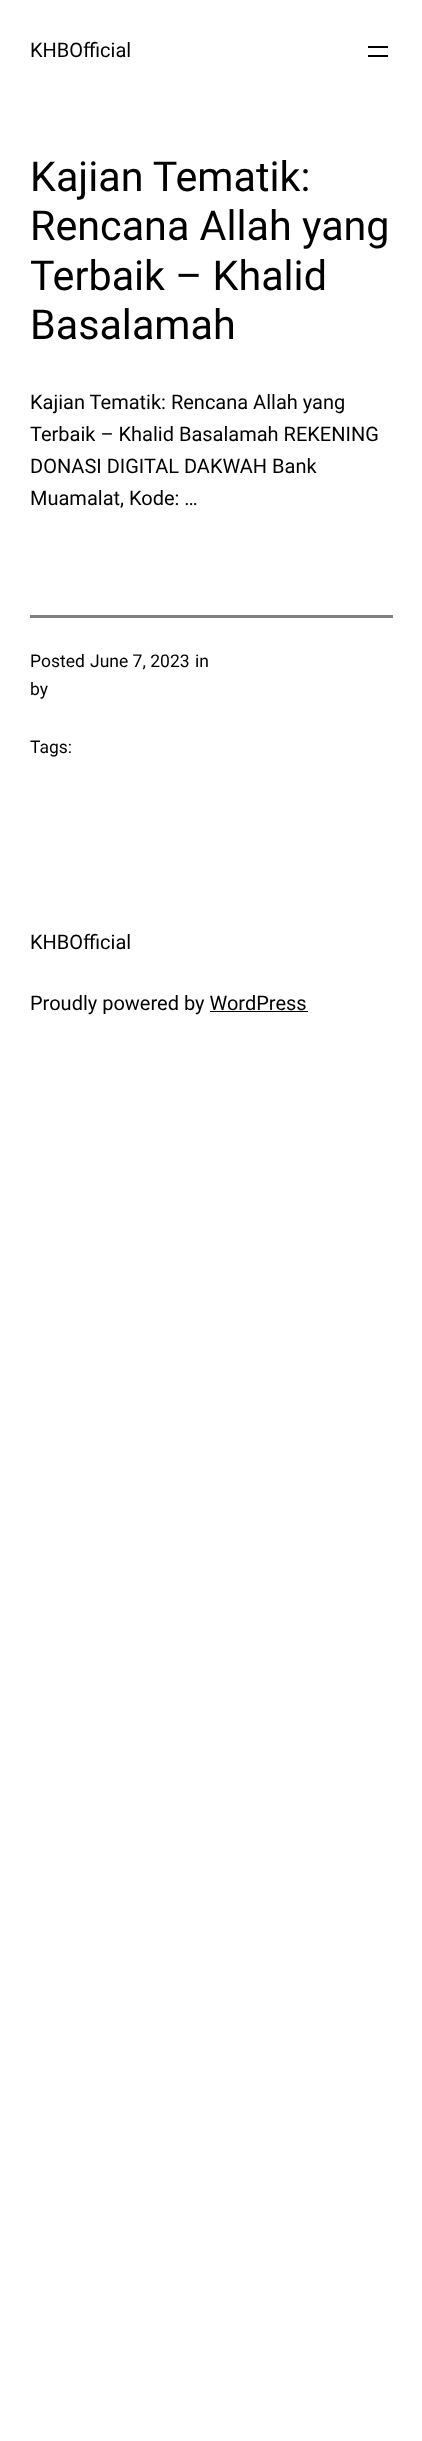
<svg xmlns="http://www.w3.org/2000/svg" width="422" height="2441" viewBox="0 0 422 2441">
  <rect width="100%" height="100%" fill="#ffffff"/>
  <text x="30" y="57" font-family="Roboto" font-size="20" fill="#000000">KHBOfficial</text>
  <rect x="368" y="46" width="20" height="2" fill="#000000"/>
  <rect x="368" y="55" width="20" height="2" fill="#000000"/>
  <text x="30" y="191" font-family="Roboto" font-size="41.25" fill="#000000">Kajian Tematik:</text>
  <text x="30" y="240" font-family="Roboto" font-size="41.25" fill="#000000">Rencana Allah yang</text>
  <text x="30" y="290" font-family="Roboto" font-size="41.25" fill="#000000">Terbaik – Khalid</text>
  <text x="30" y="339" font-family="Roboto" font-size="41.25" fill="#000000">Basalamah</text>
  <text x="30" y="409" font-family="Roboto" font-size="20" fill="#000000">Kajian Tematik: Rencana Allah yang</text>
  <text x="30" y="441" font-family="Roboto" font-size="20" fill="#000000">Terbaik – Khalid Basalamah REKENING</text>
  <text x="30" y="473" font-family="Roboto" font-size="20" fill="#000000">DONASI DIGITAL DAKWAH Bank</text>
  <text x="30" y="505" font-family="Roboto" font-size="20" fill="#000000">Muamalat, Kode: …</text>
  <rect x="30" y="615" width="363" height="3" fill="#808080"/>
  <text x="30" y="667" font-family="Roboto" font-size="17.5" fill="#000000">Posted</text>
  <text x="90" y="667" font-family="Roboto" font-size="17.5" fill="#000000">June 7, 2023</text>
  <text x="195" y="667" font-family="Roboto" font-size="17.5" fill="#000000">in</text>
  <text x="30" y="695" font-family="Roboto" font-size="17.5" fill="#000000">by</text>
  <text x="30" y="753" font-family="Roboto" font-size="17.5" fill="#000000">Tags:</text>
  <text x="30" y="949" font-family="Roboto" font-size="20" fill="#000000">KHBOfficial</text>
  <text x="30" y="1010" font-family="Roboto" font-size="20" fill="#000000">Proudly powered by WordPress</text>
  <rect x="210" y="1011" width="98" height="1" fill="#000000"/>
</svg>
